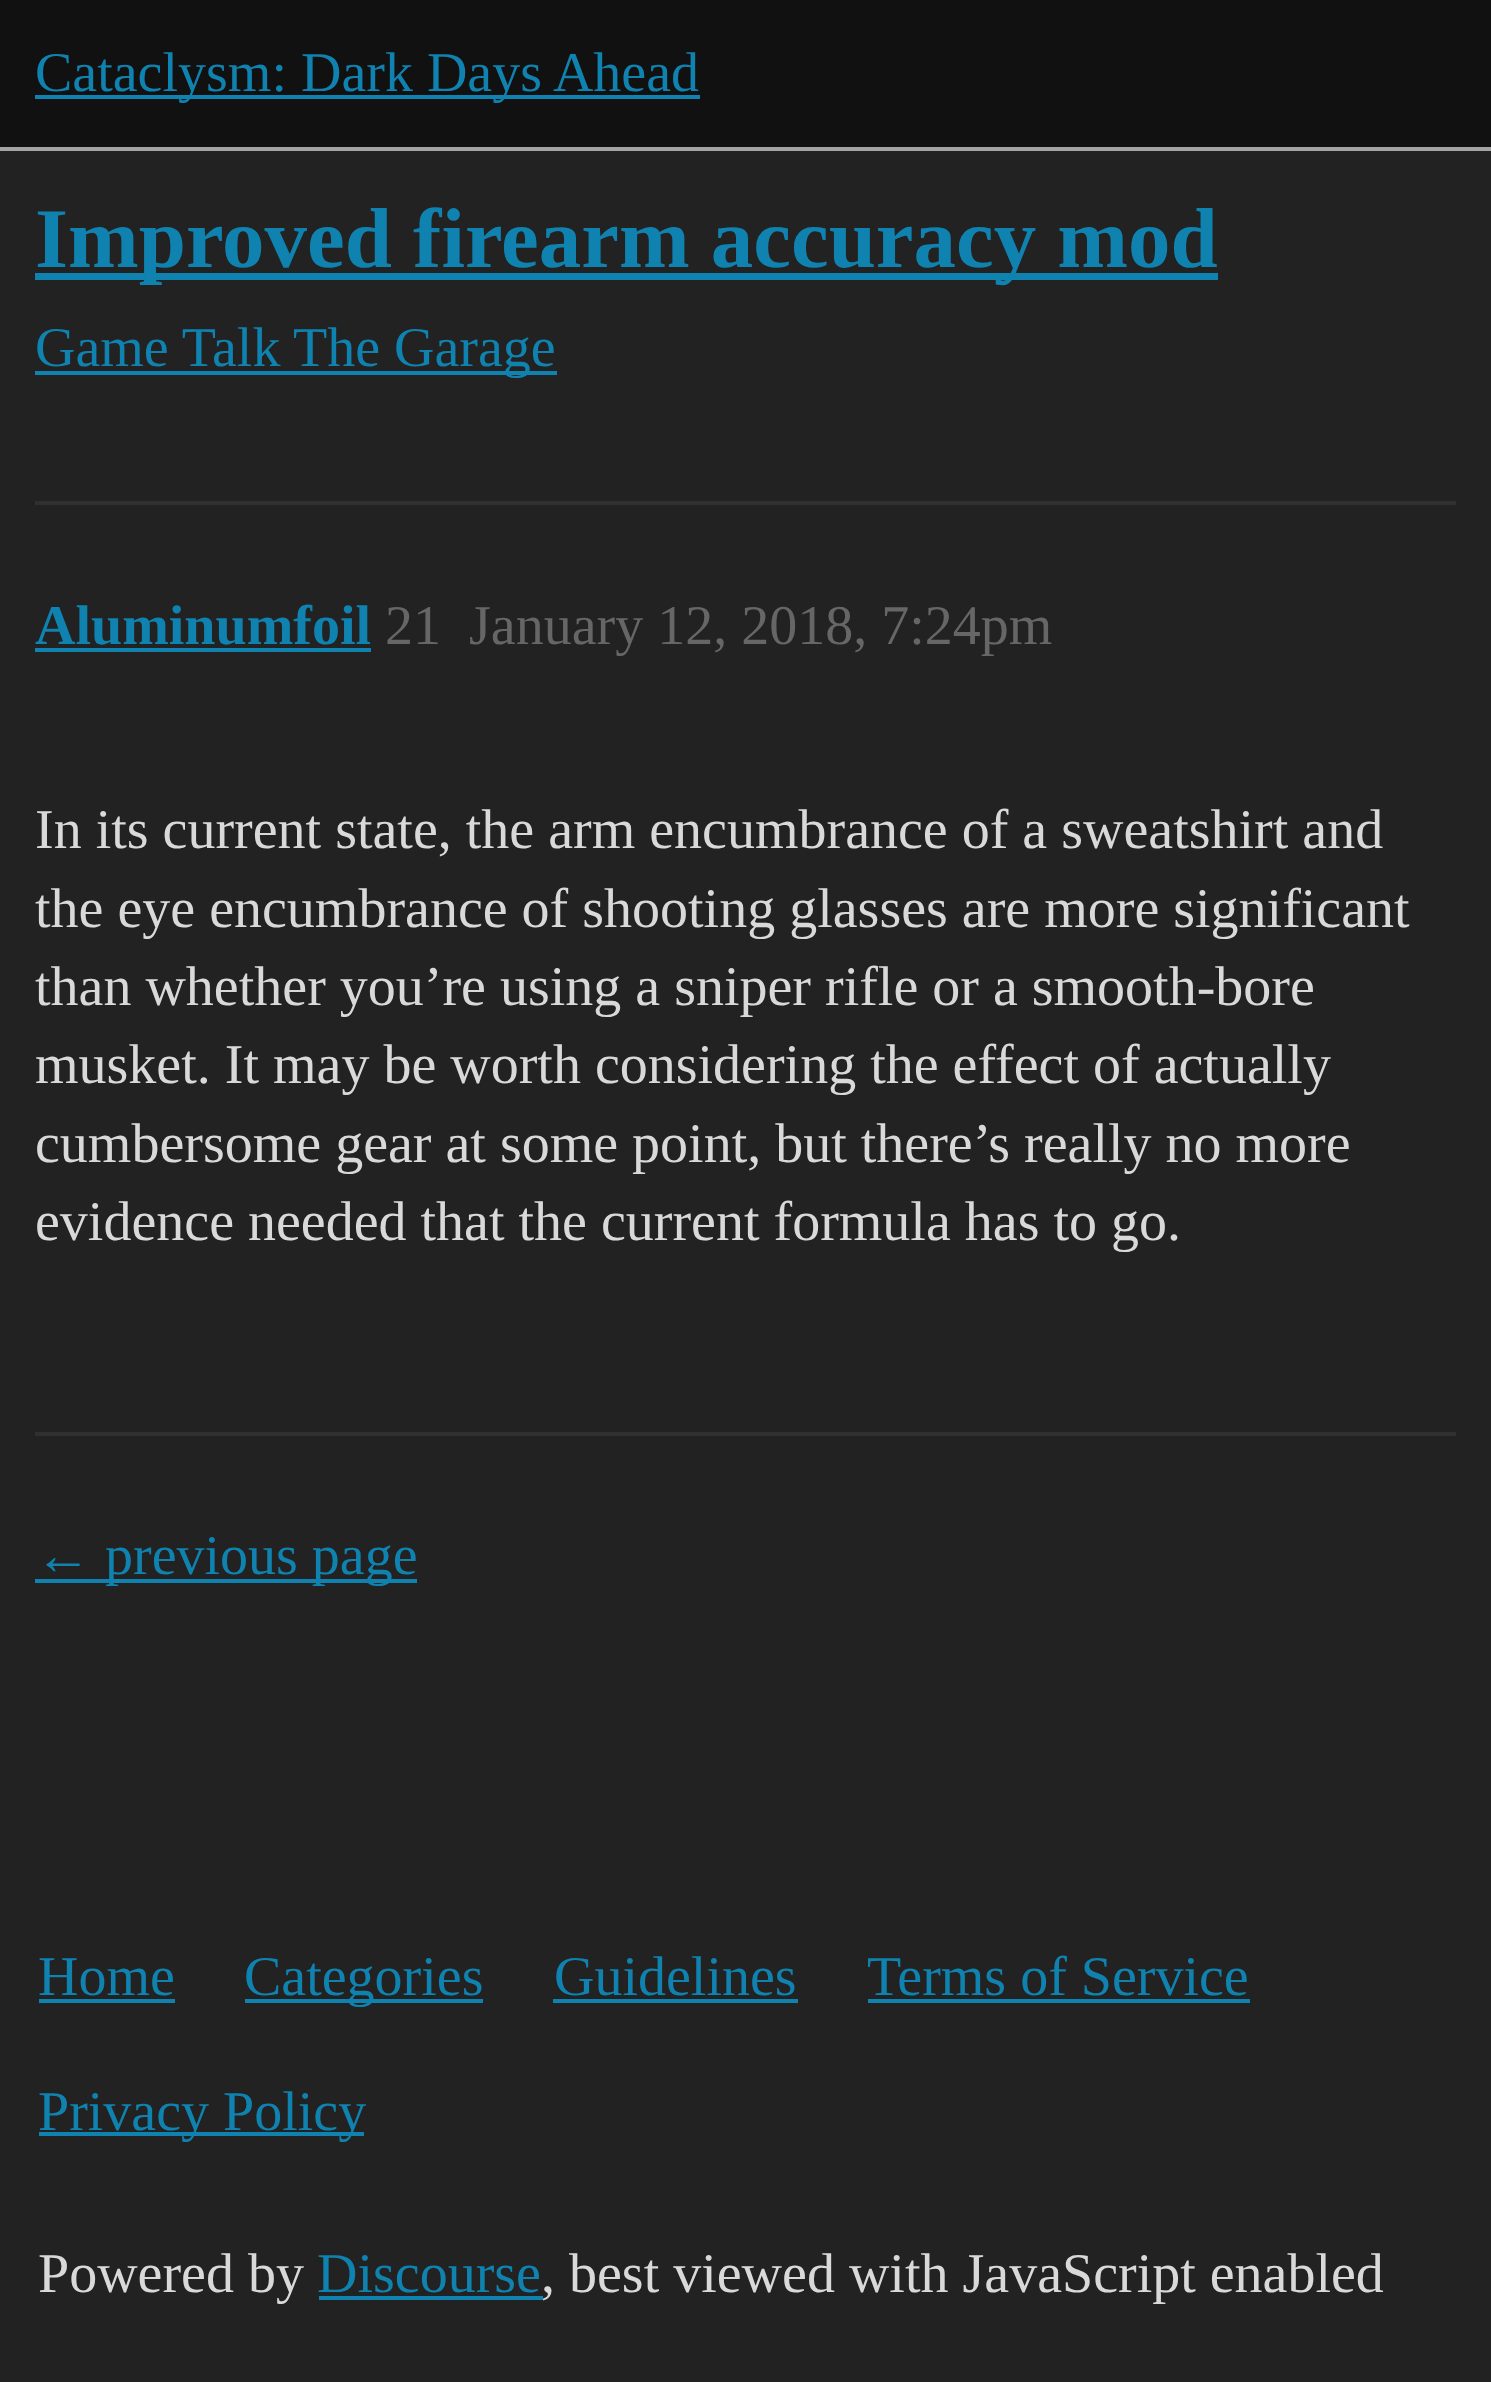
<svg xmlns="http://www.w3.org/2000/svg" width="1491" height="2382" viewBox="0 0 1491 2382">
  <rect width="100%" height="100%" fill="#222222"/>
  <rect x="0" y="0" width="1491" height="147" fill="#111111"/>
  <rect x="0" y="147" width="1491" height="4" fill="#a4a4a4"/>
  <rect x="35" y="95" width="665" height="4" fill="#0f82af"/>
  <text x="35" y="91" font-family="Liberation Serif" font-size="56" fill="#0f82af">Cataclysm: Dark Days Ahead</text>
  <rect x="35" y="273" width="1183" height="7" fill="#0f82af"/>
  <text x="35" y="267" font-family="Liberation Serif" font-size="84.9" font-weight="bold" fill="#0f82af">Improved firearm accuracy mod</text>
  <text x="35" y="366" font-family="Liberation Serif" font-size="56" fill="#0f82af">Game Talk</text>
  <rect x="35" y="371" width="522" height="4" fill="#0f82af"/>
  <text x="293" y="366" font-family="Liberation Serif" font-size="56" fill="#0f82af">The Garage</text>
  <rect x="35" y="501" width="1421" height="4" fill="#303030"/>
  <text x="35" y="644" font-family="Liberation Serif" font-size="56" font-weight="bold" fill="#0f82af">Aluminumfoil</text>
  <rect x="35" y="648" width="336" height="4" fill="#0f82af"/>
  <text x="385" y="644" font-family="Liberation Serif" font-size="56" fill="#666666">21</text>
  <text x="469" y="644" font-family="Liberation Serif" font-size="56" fill="#666666">January 12, 2018, 7:24pm</text>
  <text x="35" y="848" font-family="Liberation Serif" font-size="56" fill="#d9d9d9">In its current state, the arm encumbrance of a sweatshirt and</text>
  <text x="35" y="927" font-family="Liberation Serif" font-size="56" fill="#d9d9d9">the eye encumbrance of shooting glasses are more significant</text>
  <text x="35" y="1005" font-family="Liberation Serif" font-size="56" fill="#d9d9d9">than whether you’re using a sniper rifle or a smooth-bore</text>
  <text x="35" y="1083" font-family="Liberation Serif" font-size="56" fill="#d9d9d9">musket. It may be worth considering the effect of actually</text>
  <text x="35" y="1162" font-family="Liberation Serif" font-size="56" fill="#d9d9d9">cumbersome gear at some point, but there’s really no more</text>
  <text x="35" y="1240" font-family="Liberation Serif" font-size="56" fill="#d9d9d9">evidence needed that the current formula has to go.</text>
  <rect x="35" y="1432" width="1421" height="4" fill="#303030"/>
  <rect x="35" y="1579" width="382" height="4" fill="#0f82af"/>
  <text x="35" y="1574" font-family="Liberation Serif" font-size="56" fill="#0f82af">← previous page</text>
  <text x="38" y="1995" font-family="Liberation Serif" font-size="56" fill="#0f82af">Home</text>
  <rect x="39" y="1999" width="136" height="4" fill="#0f82af"/>
  <rect x="245" y="1999" width="238" height="4" fill="#0f82af"/>
  <text x="244" y="1995" font-family="Liberation Serif" font-size="56" fill="#0f82af">Categories</text>
  <text x="554" y="1995" font-family="Liberation Serif" font-size="56" fill="#0f82af">Guidelines</text>
  <rect x="553" y="1999" width="245" height="4" fill="#0f82af"/>
  <text x="867" y="1995" font-family="Liberation Serif" font-size="56" fill="#0f82af">Terms of Service</text>
  <rect x="868" y="1999" width="382" height="4" fill="#0f82af"/>
  <rect x="39" y="2132" width="325" height="4" fill="#0f82af"/>
  <text x="38" y="2130" font-family="Liberation Serif" font-size="56" fill="#0f82af">Privacy Policy</text>
  <text x="38" y="2292" font-family="Liberation Serif" font-size="56" fill="#d9d9d9">Powered by</text>
  <text x="317" y="2292" font-family="Liberation Serif" font-size="56" fill="#0f82af">Discourse</text>
  <rect x="319" y="2296" width="224" height="4" fill="#0f82af"/>
  <text x="541" y="2292" font-family="Liberation Serif" font-size="56" fill="#d9d9d9">, best viewed with JavaScript enabled</text>
</svg>
